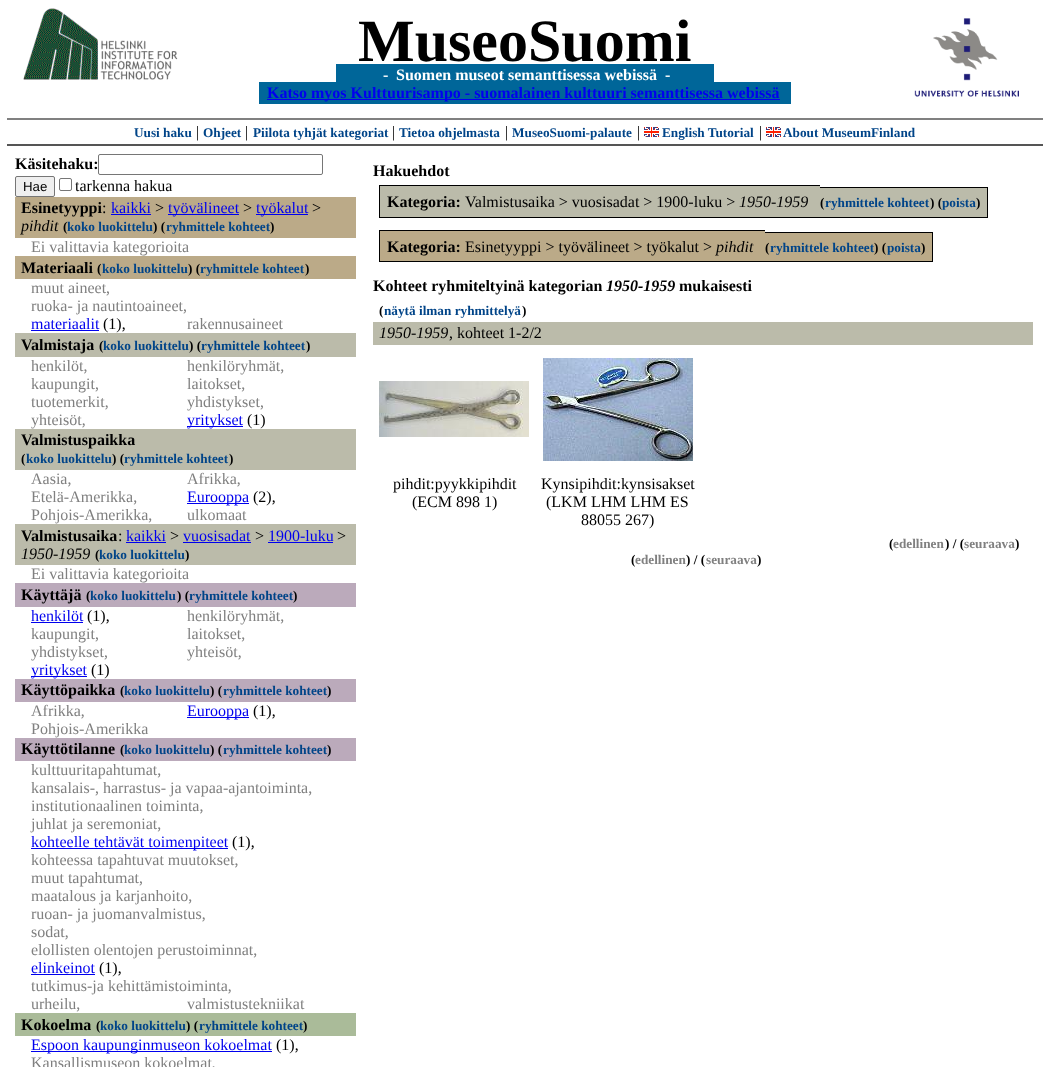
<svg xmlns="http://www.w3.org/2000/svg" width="1050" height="1067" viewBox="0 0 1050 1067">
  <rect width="100%" height="100%" fill="#ffffff"/>
  <image x="23" y="8" width="155" height="72" href="img1.png"/>
  <text x="358" y="61" font-family="Liberation Serif" font-size="60" font-weight="bold" fill="#000000">MuseoSuomi</text>
  <image x="914" y="18" width="105" height="79" href="img2.png"/>
  <rect x="336" y="64" width="378" height="18" fill="#006699"/>
  <text x="383" y="80" font-family="Liberation Serif" font-size="16" font-weight="bold" fill="#ffffff">-</text>
  <text x="396" y="80" font-family="Liberation Serif" font-size="16" font-weight="bold" fill="#ffffff">Suomen museot semanttisessa webissä</text>
  <text x="665" y="80" font-family="Liberation Serif" font-size="16" font-weight="bold" fill="#ffffff">-</text>
  <rect x="259" y="82" width="532" height="22" fill="#006699"/>
  <rect x="267" y="99" width="513" height="1" fill="#0000ee"/>
  <text x="267" y="98" font-family="Liberation Serif" font-size="16" font-weight="bold" fill="#0000ee">Katso myos Kulttuurisampo - suomalainen kulttuuri semanttisessa webissä</text>
  <rect x="7" y="118" width="1036" height="2" fill="#808080"/>
  <rect x="7" y="144" width="1036" height="2" fill="#555555"/>
  <text x="134" y="137" font-family="Liberation Serif" font-size="13.25" font-weight="bold" fill="#004488">Uusi haku</text>
  <text x="196" y="137" font-family="Liberation Serif" font-size="16" fill="#000000">|</text>
  <text x="203" y="137" font-family="Liberation Serif" font-size="13.25" font-weight="bold" fill="#004488">Ohjeet</text>
  <text x="245" y="137" font-family="Liberation Serif" font-size="16" fill="#000000">|</text>
  <text x="253" y="137" font-family="Liberation Serif" font-size="13.25" font-weight="bold" fill="#004488">Piilota tyhjät kategoriat</text>
  <text x="392" y="137" font-family="Liberation Serif" font-size="16" fill="#000000">|</text>
  <text x="399" y="137" font-family="Liberation Serif" font-size="13.25" font-weight="bold" fill="#004488">Tietoa ohjelmasta</text>
  <text x="505" y="137" font-family="Liberation Serif" font-size="16" fill="#000000">|</text>
  <text x="512" y="137" font-family="Liberation Serif" font-size="13.25" font-weight="bold" fill="#004488">MuseoSuomi-palaute</text>
  <text x="637" y="137" font-family="Liberation Serif" font-size="16" fill="#000000">|</text>
  <image x="644" y="127" width="15" height="10" href="img3.png"/>
  <text x="662" y="137" font-family="Liberation Serif" font-size="13.25" font-weight="bold" fill="#004488">English Tutorial</text>
  <text x="759" y="137" font-family="Liberation Serif" font-size="16" fill="#000000">|</text>
  <image x="766" y="127" width="15" height="10" href="img3.png"/>
  <text x="783" y="137" font-family="Liberation Serif" font-size="13.25" font-weight="bold" fill="#004488">About MuseumFinland</text>
  <text x="15" y="169" font-family="Liberation Serif" font-size="16" font-weight="bold" fill="#000000">Käsitehaku:</text>
  <rect x="98.5" y="154.5" width="224" height="20" rx="1.5" fill="none" stroke="#767676"/>
  <rect x="15.5" y="176.5" width="39" height="20" rx="1.5" fill="#efefef" stroke="#767676"/>
  <text x="23" y="191" font-family="Liberation Sans" font-size="13.25" fill="#000000">Hae</text>
  <rect x="59.5" y="178.5" width="12" height="12" rx="1.5" fill="none" stroke="#767676"/>
  <text x="75" y="191" font-family="Liberation Serif" font-size="16" fill="#000000">tarkenna hakua</text>
  <rect x="15" y="197" width="341" height="41" fill="#bbaa88"/>
  <text x="21" y="213" font-family="Liberation Serif" font-size="16" font-weight="bold" fill="#000000">Esinetyyppi</text>
  <text x="102" y="213" font-family="Liberation Serif" font-size="16" fill="#000000">:</text>
  <text x="111" y="213" font-family="Liberation Serif" font-size="16" fill="#0000ee">kaikki</text>
  <rect x="111" y="214" width="40" height="1" fill="#0000ee"/>
  <text x="155" y="213" font-family="Liberation Serif" font-size="16" fill="#000000">&gt;</text>
  <rect x="168" y="214" width="71" height="1" fill="#0000ee"/>
  <text x="168" y="213" font-family="Liberation Serif" font-size="16" fill="#0000ee">työvälineet</text>
  <text x="243" y="213" font-family="Liberation Serif" font-size="16" fill="#000000">&gt;</text>
  <rect x="256" y="214" width="52" height="1" fill="#0000ee"/>
  <text x="256" y="213" font-family="Liberation Serif" font-size="16" fill="#0000ee">työkalut</text>
  <text x="312" y="213" font-family="Liberation Serif" font-size="16" fill="#000000">&gt;</text>
  <text x="21" y="231" font-family="Liberation Serif" font-size="16" font-style="italic" fill="#000000">pihdit</text>
  <text x="63" y="231" font-family="Liberation Serif" font-size="13.25" font-weight="bold" fill="#000000">(</text>
  <text x="67" y="231" font-family="Liberation Serif" font-size="13.25" font-weight="bold" fill="#004488">koko luokittelu</text>
  <text x="153" y="231" font-family="Liberation Serif" font-size="13.25" font-weight="bold" fill="#000000">) (</text>
  <text x="166" y="231" font-family="Liberation Serif" font-size="13.25" font-weight="bold" fill="#004488">ryhmittele kohteet</text>
  <text x="270" y="231" font-family="Liberation Serif" font-size="13.25" font-weight="bold" fill="#000000">)</text>
  <text x="31" y="252" font-family="Liberation Serif" font-size="16" fill="#808080">Ei valittavia kategorioita</text>
  <rect x="15" y="256" width="341" height="23" fill="#bbaa88"/>
  <text x="21" y="273" font-family="Liberation Serif" font-size="16" font-weight="bold" fill="#000000">Materiaali</text>
  <text x="97" y="273" font-family="Liberation Serif" font-size="13.25" font-weight="bold" fill="#000000">(</text>
  <text x="102" y="273" font-family="Liberation Serif" font-size="13.25" font-weight="bold" fill="#004488">koko luokittelu</text>
  <text x="188" y="273" font-family="Liberation Serif" font-size="13.25" font-weight="bold" fill="#000000">) (</text>
  <text x="200" y="273" font-family="Liberation Serif" font-size="13.25" font-weight="bold" fill="#004488">ryhmittele kohteet</text>
  <text x="305" y="273" font-family="Liberation Serif" font-size="13.25" font-weight="bold" fill="#000000">)</text>
  <text x="31" y="293" font-family="Liberation Serif" font-size="16" fill="#808080">muut aineet,</text>
  <text x="31" y="311" font-family="Liberation Serif" font-size="16" fill="#808080">ruoka- ja nautintoaineet,</text>
  <text x="31" y="329" font-family="Liberation Serif" font-size="16" fill="#0000ee">materiaalit</text>
  <rect x="31" y="330" width="68" height="1" fill="#0000ee"/>
  <text x="103" y="329" font-family="Liberation Serif" font-size="16" fill="#000000">(1),</text>
  <text x="187" y="329" font-family="Liberation Serif" font-size="16" fill="#808080">rakennusaineet</text>
  <rect x="15" y="333" width="341" height="24" fill="#bbbbaa"/>
  <text x="21" y="350" font-family="Liberation Serif" font-size="16" font-weight="bold" fill="#000000">Valmistaja</text>
  <text x="99" y="350" font-family="Liberation Serif" font-size="13.25" font-weight="bold" fill="#000000">(</text>
  <text x="103" y="350" font-family="Liberation Serif" font-size="13.25" font-weight="bold" fill="#004488">koko luokittelu</text>
  <text x="189" y="350" font-family="Liberation Serif" font-size="13.25" font-weight="bold" fill="#000000">) (</text>
  <text x="201" y="350" font-family="Liberation Serif" font-size="13.25" font-weight="bold" fill="#004488">ryhmittele kohteet</text>
  <text x="306" y="350" font-family="Liberation Serif" font-size="13.25" font-weight="bold" fill="#000000">)</text>
  <text x="31" y="371" font-family="Liberation Serif" font-size="16" fill="#808080">henkilöt,</text>
  <text x="187" y="371" font-family="Liberation Serif" font-size="16" fill="#808080">henkilöryhmät,</text>
  <text x="31" y="389" font-family="Liberation Serif" font-size="16" fill="#808080">kaupungit,</text>
  <text x="187" y="389" font-family="Liberation Serif" font-size="16" fill="#808080">laitokset,</text>
  <text x="31" y="407" font-family="Liberation Serif" font-size="16" fill="#808080">tuotemerkit,</text>
  <text x="187" y="407" font-family="Liberation Serif" font-size="16" fill="#808080">yhdistykset,</text>
  <text x="31" y="425" font-family="Liberation Serif" font-size="16" fill="#808080">yhteisöt,</text>
  <rect x="187" y="426" width="56" height="1" fill="#0000ee"/>
  <text x="187" y="425" font-family="Liberation Serif" font-size="16" fill="#0000ee">yritykset</text>
  <text x="247" y="425" font-family="Liberation Serif" font-size="16" fill="#000000">(1)</text>
  <rect x="15" y="429" width="341" height="41" fill="#bbbbaa"/>
  <text x="21" y="445" font-family="Liberation Serif" font-size="16" font-weight="bold" fill="#000000">Valmistuspaikka</text>
  <text x="21" y="463" font-family="Liberation Serif" font-size="13.25" font-weight="bold" fill="#000000">(</text>
  <text x="26" y="463" font-family="Liberation Serif" font-size="13.25" font-weight="bold" fill="#004488">koko luokittelu</text>
  <text x="112" y="463" font-family="Liberation Serif" font-size="13.25" font-weight="bold" fill="#000000">) (</text>
  <text x="124" y="463" font-family="Liberation Serif" font-size="13.25" font-weight="bold" fill="#004488">ryhmittele kohteet</text>
  <text x="229" y="463" font-family="Liberation Serif" font-size="13.25" font-weight="bold" fill="#000000">)</text>
  <text x="31" y="484" font-family="Liberation Serif" font-size="16" fill="#808080">Aasia,</text>
  <text x="187" y="484" font-family="Liberation Serif" font-size="16" fill="#808080">Afrikka,</text>
  <text x="31" y="502" font-family="Liberation Serif" font-size="16" fill="#808080">Etelä-Amerikka,</text>
  <rect x="187" y="503" width="62" height="1" fill="#0000ee"/>
  <text x="187" y="502" font-family="Liberation Serif" font-size="16" fill="#0000ee">Eurooppa</text>
  <text x="253" y="502" font-family="Liberation Serif" font-size="16" fill="#000000">(2),</text>
  <text x="31" y="520" font-family="Liberation Serif" font-size="16" fill="#808080">Pohjois-Amerikka,</text>
  <text x="187" y="520" font-family="Liberation Serif" font-size="16" fill="#808080">ulkomaat</text>
  <rect x="15" y="524" width="341" height="41" fill="#bbbbaa"/>
  <text x="21" y="541" font-family="Liberation Serif" font-size="16" font-weight="bold" fill="#000000">Valmistusaika</text>
  <text x="118" y="541" font-family="Liberation Serif" font-size="16" fill="#000000">:</text>
  <text x="126" y="541" font-family="Liberation Serif" font-size="16" fill="#0000ee">kaikki</text>
  <rect x="126" y="542" width="40" height="1" fill="#0000ee"/>
  <text x="170" y="541" font-family="Liberation Serif" font-size="16" fill="#000000">&gt;</text>
  <text x="183" y="541" font-family="Liberation Serif" font-size="16" fill="#0000ee">vuosisadat</text>
  <rect x="183" y="542" width="68" height="1" fill="#0000ee"/>
  <text x="255" y="541" font-family="Liberation Serif" font-size="16" fill="#000000">&gt;</text>
  <text x="268" y="541" font-family="Liberation Serif" font-size="16" fill="#0000ee">1900-luku</text>
  <rect x="268" y="542" width="65" height="1" fill="#0000ee"/>
  <text x="337" y="541" font-family="Liberation Serif" font-size="16" fill="#000000">&gt;</text>
  <text x="21" y="559" font-family="Liberation Serif" font-size="16" font-style="italic" fill="#000000">1950-1959</text>
  <text x="95" y="559" font-family="Liberation Serif" font-size="13.25" font-weight="bold" fill="#000000">(</text>
  <text x="99" y="559" font-family="Liberation Serif" font-size="13.25" font-weight="bold" fill="#004488">koko luokittelu</text>
  <text x="185" y="559" font-family="Liberation Serif" font-size="13.25" font-weight="bold" fill="#000000">)</text>
  <text x="31" y="579" font-family="Liberation Serif" font-size="16" fill="#808080">Ei valittavia kategorioita</text>
  <rect x="15" y="583" width="341" height="24" fill="#bbaabb"/>
  <text x="21" y="600" font-family="Liberation Serif" font-size="16" font-weight="bold" fill="#000000">Käyttäjä</text>
  <text x="86" y="600" font-family="Liberation Serif" font-size="13.25" font-weight="bold" fill="#000000">(</text>
  <text x="90" y="600" font-family="Liberation Serif" font-size="13.25" font-weight="bold" fill="#004488">koko luokittelu</text>
  <text x="177" y="600" font-family="Liberation Serif" font-size="13.25" font-weight="bold" fill="#000000">) (</text>
  <text x="189" y="600" font-family="Liberation Serif" font-size="13.25" font-weight="bold" fill="#004488">ryhmittele kohteet</text>
  <text x="293" y="600" font-family="Liberation Serif" font-size="13.25" font-weight="bold" fill="#000000">)</text>
  <text x="31" y="621" font-family="Liberation Serif" font-size="16" fill="#0000ee">henkilöt</text>
  <rect x="31" y="622" width="52" height="1" fill="#0000ee"/>
  <text x="87" y="621" font-family="Liberation Serif" font-size="16" fill="#000000">(1),</text>
  <text x="187" y="621" font-family="Liberation Serif" font-size="16" fill="#808080">henkilöryhmät,</text>
  <text x="31" y="639" font-family="Liberation Serif" font-size="16" fill="#808080">kaupungit,</text>
  <text x="187" y="639" font-family="Liberation Serif" font-size="16" fill="#808080">laitokset,</text>
  <text x="31" y="657" font-family="Liberation Serif" font-size="16" fill="#808080">yhdistykset,</text>
  <text x="187" y="657" font-family="Liberation Serif" font-size="16" fill="#808080">yhteisöt,</text>
  <rect x="31" y="676" width="56" height="1" fill="#0000ee"/>
  <text x="31" y="675" font-family="Liberation Serif" font-size="16" fill="#0000ee">yritykset</text>
  <text x="91" y="675" font-family="Liberation Serif" font-size="16" fill="#000000">(1)</text>
  <rect x="15" y="679" width="341" height="23" fill="#bbaabb"/>
  <text x="21" y="695" font-family="Liberation Serif" font-size="16" font-weight="bold" fill="#000000">Käyttöpaikka</text>
  <text x="120" y="695" font-family="Liberation Serif" font-size="13.25" font-weight="bold" fill="#000000">(</text>
  <text x="124" y="695" font-family="Liberation Serif" font-size="13.25" font-weight="bold" fill="#004488">koko luokittelu</text>
  <text x="210" y="695" font-family="Liberation Serif" font-size="13.25" font-weight="bold" fill="#000000">) (</text>
  <text x="223" y="695" font-family="Liberation Serif" font-size="13.25" font-weight="bold" fill="#004488">ryhmittele kohteet</text>
  <text x="327" y="695" font-family="Liberation Serif" font-size="13.25" font-weight="bold" fill="#000000">)</text>
  <text x="31" y="716" font-family="Liberation Serif" font-size="16" fill="#808080">Afrikka,</text>
  <rect x="187" y="717" width="62" height="1" fill="#0000ee"/>
  <text x="187" y="716" font-family="Liberation Serif" font-size="16" fill="#0000ee">Eurooppa</text>
  <text x="253" y="716" font-family="Liberation Serif" font-size="16" fill="#000000">(1),</text>
  <text x="31" y="734" font-family="Liberation Serif" font-size="16" fill="#808080">Pohjois-Amerikka</text>
  <rect x="15" y="738" width="341" height="23" fill="#bbaabb"/>
  <text x="21" y="754" font-family="Liberation Serif" font-size="16" font-weight="bold" fill="#000000">Käyttötilanne</text>
  <text x="120" y="754" font-family="Liberation Serif" font-size="13.25" font-weight="bold" fill="#000000">(</text>
  <text x="124" y="754" font-family="Liberation Serif" font-size="13.25" font-weight="bold" fill="#004488">koko luokittelu</text>
  <text x="210" y="754" font-family="Liberation Serif" font-size="13.25" font-weight="bold" fill="#000000">) (</text>
  <text x="223" y="754" font-family="Liberation Serif" font-size="13.25" font-weight="bold" fill="#004488">ryhmittele kohteet</text>
  <text x="327" y="754" font-family="Liberation Serif" font-size="13.25" font-weight="bold" fill="#000000">)</text>
  <text x="31" y="775" font-family="Liberation Serif" font-size="16" fill="#808080">kulttuuritapahtumat,</text>
  <text x="31" y="793" font-family="Liberation Serif" font-size="16" fill="#808080">kansalais-, harrastus- ja vapaa-ajantoiminta,</text>
  <text x="31" y="811" font-family="Liberation Serif" font-size="16" fill="#808080">institutionaalinen toiminta,</text>
  <text x="31" y="829" font-family="Liberation Serif" font-size="16" fill="#808080">juhlat ja seremoniat,</text>
  <rect x="31" y="848" width="197" height="1" fill="#0000ee"/>
  <text x="31" y="847" font-family="Liberation Serif" font-size="16" fill="#0000ee">kohteelle tehtävät toimenpiteet</text>
  <text x="232" y="847" font-family="Liberation Serif" font-size="16" fill="#000000">(1),</text>
  <text x="31" y="865" font-family="Liberation Serif" font-size="16" fill="#808080">kohteessa tapahtuvat muutokset,</text>
  <text x="31" y="883" font-family="Liberation Serif" font-size="16" fill="#808080">muut tapahtumat,</text>
  <text x="31" y="901" font-family="Liberation Serif" font-size="16" fill="#808080">maatalous ja karjanhoito,</text>
  <text x="31" y="919" font-family="Liberation Serif" font-size="16" fill="#808080">ruoan- ja juomanvalmistus,</text>
  <text x="31" y="937" font-family="Liberation Serif" font-size="16" fill="#808080">sodat,</text>
  <text x="31" y="955" font-family="Liberation Serif" font-size="16" fill="#808080">elollisten olentojen perustoiminnat,</text>
  <text x="31" y="973" font-family="Liberation Serif" font-size="16" fill="#0000ee">elinkeinot</text>
  <rect x="31" y="974" width="64" height="1" fill="#0000ee"/>
  <text x="99" y="973" font-family="Liberation Serif" font-size="16" fill="#000000">(1),</text>
  <text x="31" y="991" font-family="Liberation Serif" font-size="16" fill="#808080">tutkimus-ja kehittämistoiminta,</text>
  <text x="31" y="1009" font-family="Liberation Serif" font-size="16" fill="#808080">urheilu,</text>
  <text x="187" y="1009" font-family="Liberation Serif" font-size="16" fill="#808080">valmistustekniikat</text>
  <rect x="15" y="1013" width="341" height="23" fill="#aabb99"/>
  <text x="21" y="1030" font-family="Liberation Serif" font-size="16" font-weight="bold" fill="#000000">Kokoelma</text>
  <text x="96" y="1030" font-family="Liberation Serif" font-size="13.25" font-weight="bold" fill="#000000">(</text>
  <text x="100" y="1030" font-family="Liberation Serif" font-size="13.25" font-weight="bold" fill="#004488">koko luokittelu</text>
  <text x="186" y="1030" font-family="Liberation Serif" font-size="13.25" font-weight="bold" fill="#000000">) (</text>
  <text x="199" y="1030" font-family="Liberation Serif" font-size="13.25" font-weight="bold" fill="#004488">ryhmittele kohteet</text>
  <text x="303" y="1030" font-family="Liberation Serif" font-size="13.25" font-weight="bold" fill="#000000">)</text>
  <rect x="31" y="1051" width="241" height="1" fill="#0000ee"/>
  <text x="31" y="1050" font-family="Liberation Serif" font-size="16" fill="#0000ee">Espoon kaupunginmuseon kokoelmat</text>
  <text x="276" y="1050" font-family="Liberation Serif" font-size="16" fill="#000000">(1),</text>
  <text x="31" y="1068" font-family="Liberation Serif" font-size="16" fill="#808080">Kansallismuseon kokoelmat,</text>
  <text x="373" y="176" font-family="Liberation Serif" font-size="16" font-weight="bold" fill="#000000">Hakuehdot</text>
  <rect x="380" y="186" width="440" height="31" fill="#bbbbaa"/>
  <text x="387" y="207" font-family="Liberation Serif" font-size="16" font-weight="bold" fill="#000000">Kategoria:</text>
  <rect x="379" y="185" width="441" height="1" fill="#000000"/>
  <rect x="379" y="217" width="441" height="1" fill="#000000"/>
  <rect x="379" y="185" width="1" height="33" fill="#000000"/>
  <text x="465" y="207" font-family="Liberation Serif" font-size="16" fill="#000000">Valmistusaika &gt; vuosisadat &gt; 1900-luku &gt;</text>
  <text x="739" y="207" font-family="Liberation Serif" font-size="16" font-style="italic" fill="#000000">1950-1959</text>
  <rect x="820" y="187" width="5" height="31" fill="#bbbbaa"/>
  <text x="820" y="207" font-family="Liberation Serif" font-size="13.25" font-weight="bold" fill="#000000">(</text>
  <rect x="820" y="187" width="110" height="1" fill="#000000"/>
  <rect x="820" y="217" width="110" height="1" fill="#000000"/>
  <rect x="825" y="188" width="105" height="29" fill="#bbbbaa"/>
  <text x="825" y="207" font-family="Liberation Serif" font-size="13.25" font-weight="bold" fill="#004488">ryhmittele kohteet</text>
  <rect x="930" y="187" width="12" height="31" fill="#bbbbaa"/>
  <rect x="930" y="187" width="58" height="1" fill="#000000"/>
  <rect x="930" y="217" width="46" height="1" fill="#000000"/>
  <text x="930" y="207" font-family="Liberation Serif" font-size="13.25" font-weight="bold" fill="#000000">) (</text>
  <rect x="942" y="188" width="45" height="29" fill="#bbbbaa"/>
  <text x="942" y="207" font-family="Liberation Serif" font-size="13.25" font-weight="bold" fill="#004488">poista</text>
  <rect x="987" y="187" width="1" height="31" fill="#000000"/>
  <rect x="976" y="217" width="12" height="1" fill="#000000"/>
  <text x="976" y="207" font-family="Liberation Serif" font-size="13.25" font-weight="bold" fill="#000000">)</text>
  <rect x="380" y="231" width="385" height="30" fill="#bbaa88"/>
  <text x="387" y="252" font-family="Liberation Serif" font-size="16" font-weight="bold" fill="#000000">Kategoria:</text>
  <rect x="379" y="230" width="386" height="1" fill="#000000"/>
  <rect x="379" y="261" width="386" height="1" fill="#000000"/>
  <rect x="379" y="230" width="1" height="32" fill="#000000"/>
  <text x="465" y="252" font-family="Liberation Serif" font-size="16" fill="#000000">Esinetyyppi &gt; työvälineet &gt; työkalut &gt;</text>
  <text x="716" y="252" font-family="Liberation Serif" font-size="16" font-style="italic" fill="#000000">pihdit</text>
  <rect x="765" y="232" width="5" height="30" fill="#bbaa88"/>
  <text x="765" y="252" font-family="Liberation Serif" font-size="13.25" font-weight="bold" fill="#000000">(</text>
  <rect x="765" y="232" width="109" height="1" fill="#000000"/>
  <rect x="765" y="261" width="109" height="1" fill="#000000"/>
  <rect x="770" y="233" width="104" height="28" fill="#bbaa88"/>
  <rect x="874" y="232" width="13" height="30" fill="#bbaa88"/>
  <text x="770" y="252" font-family="Liberation Serif" font-size="13.25" font-weight="bold" fill="#004488">ryhmittele kohteet</text>
  <rect x="874" y="232" width="59" height="1" fill="#000000"/>
  <rect x="874" y="261" width="47" height="1" fill="#000000"/>
  <text x="874" y="252" font-family="Liberation Serif" font-size="13.25" font-weight="bold" fill="#000000">) (</text>
  <rect x="887" y="233" width="45" height="28" fill="#bbaa88"/>
  <text x="887" y="252" font-family="Liberation Serif" font-size="13.25" font-weight="bold" fill="#004488">poista</text>
  <rect x="932" y="232" width="1" height="30" fill="#000000"/>
  <rect x="921" y="261" width="12" height="1" fill="#000000"/>
  <text x="921" y="252" font-family="Liberation Serif" font-size="13.25" font-weight="bold" fill="#000000">)</text>
  <text x="373" y="291" font-family="Liberation Serif" font-size="16" font-weight="bold" fill="#000000">Kohteet ryhmiteltyinä kategorian</text>
  <text x="606" y="291" font-family="Liberation Serif" font-size="16" font-weight="bold" font-style="italic" fill="#000000">1950-1959</text>
  <text x="679" y="291" font-family="Liberation Serif" font-size="16" font-weight="bold" fill="#000000">mukaisesti</text>
  <text x="379" y="315" font-family="Liberation Serif" font-size="13.25" font-weight="bold" fill="#000000">(</text>
  <text x="384" y="315" font-family="Liberation Serif" font-size="13.25" font-weight="bold" fill="#004488">näytä ilman ryhmittelyä</text>
  <text x="522" y="315" font-family="Liberation Serif" font-size="13.25" font-weight="bold" fill="#000000">)</text>
  <rect x="373" y="322" width="660" height="23" fill="#bbbbaa"/>
  <text x="379" y="338" font-family="Liberation Serif" font-size="16" font-style="italic" fill="#000000">1950-1959</text>
  <text x="449" y="338" font-family="Liberation Serif" font-size="16" fill="#000000">, kohteet 1-2/2</text>
  <image x="379" y="381" width="150" height="56" href="img4.png"/>
  <image x="543" y="358" width="150" height="103" href="img5.png"/>
  <text x="393" y="489" font-family="Liberation Serif" font-size="16" fill="#000000">pihdit:pyykkipihdit</text>
  <text x="412" y="507" font-family="Liberation Serif" font-size="16" fill="#000000">(ECM 898 1)</text>
  <text x="541" y="489" font-family="Liberation Serif" font-size="16" fill="#000000">Kynsipihdit:kynsisakset</text>
  <text x="546" y="507" font-family="Liberation Serif" font-size="16" fill="#000000">(LKM LHM LHM ES</text>
  <text x="581" y="525" font-family="Liberation Serif" font-size="16" fill="#000000">88055 267)</text>
  <text x="889" y="548" font-family="Liberation Serif" font-size="13.25" font-weight="bold" fill="#000000">(</text>
  <text x="893" y="548" font-family="Liberation Serif" font-size="13.25" font-weight="bold" fill="#808080">edellinen</text>
  <text x="945" y="548" font-family="Liberation Serif" font-size="13.25" font-weight="bold" fill="#000000">) / (</text>
  <text x="964" y="548" font-family="Liberation Serif" font-size="13.25" font-weight="bold" fill="#808080">seuraava</text>
  <text x="1015" y="548" font-family="Liberation Serif" font-size="13.25" font-weight="bold" fill="#000000">)</text>
  <text x="631" y="564" font-family="Liberation Serif" font-size="13.25" font-weight="bold" fill="#000000">(</text>
  <text x="635" y="564" font-family="Liberation Serif" font-size="13.25" font-weight="bold" fill="#808080">edellinen</text>
  <text x="686" y="564" font-family="Liberation Serif" font-size="13.25" font-weight="bold" fill="#000000">) / (</text>
  <text x="706" y="564" font-family="Liberation Serif" font-size="13.25" font-weight="bold" fill="#808080">seuraava</text>
  <text x="757" y="564" font-family="Liberation Serif" font-size="13.25" font-weight="bold" fill="#000000">)</text>
</svg>
